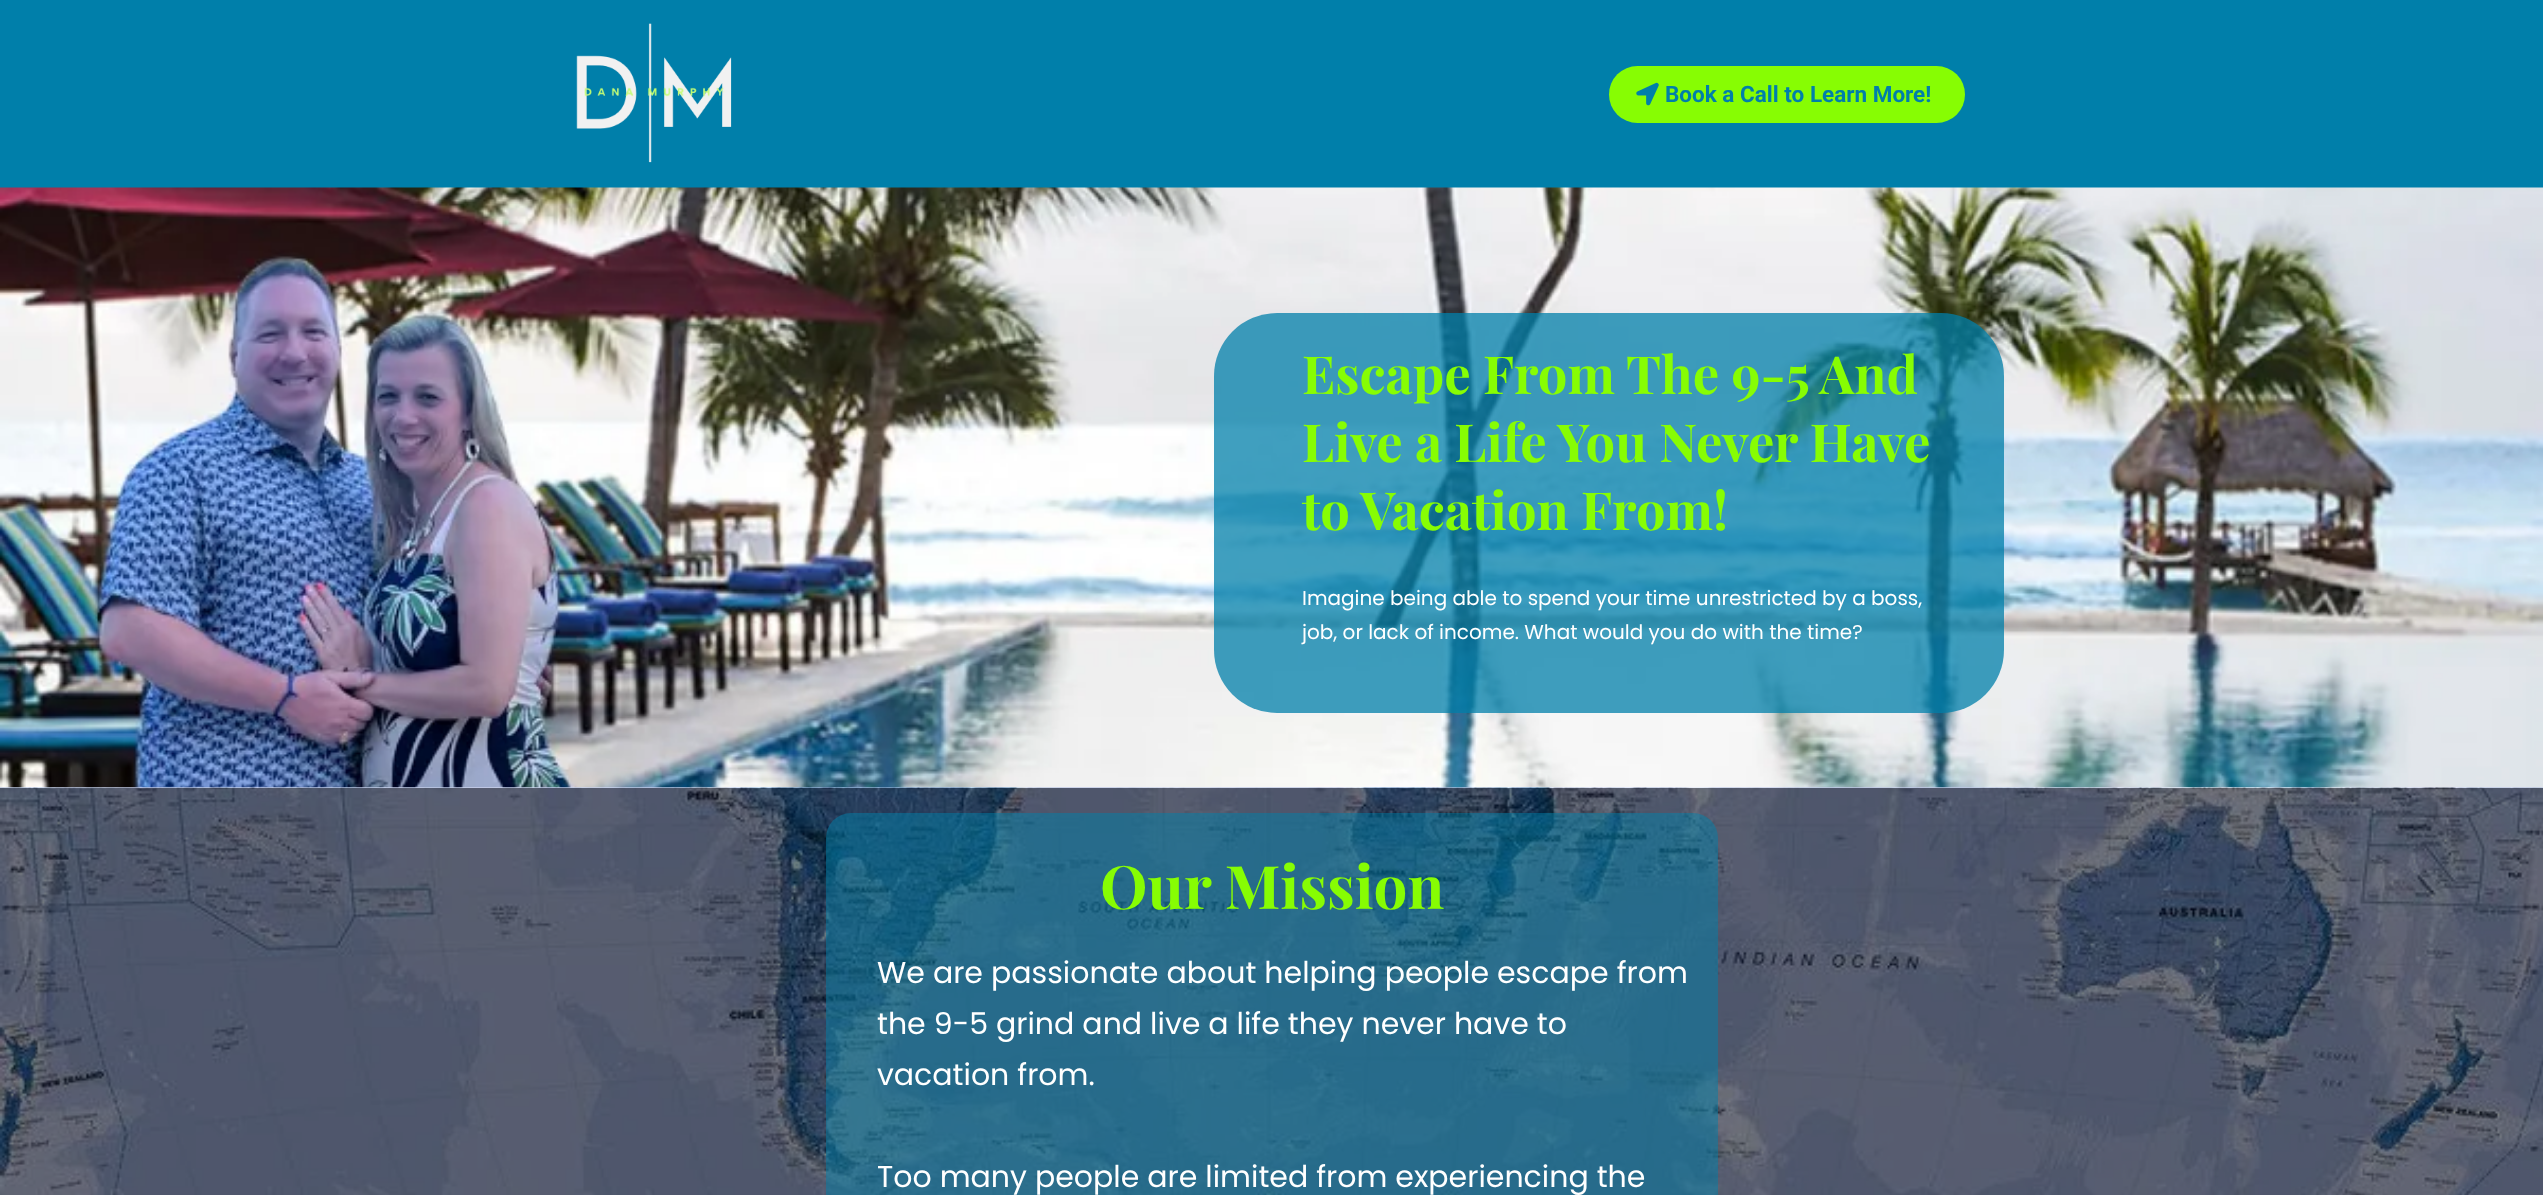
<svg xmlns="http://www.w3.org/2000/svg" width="2543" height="1195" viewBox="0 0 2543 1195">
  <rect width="100%" height="100%" fill="#ffffff"/>
  <rect x="0" y="0" width="2543" height="188" fill="#007faa"/>
  <image x="576" y="23" width="156" height="140" href="img1.png"/>
  <rect x="1609" y="66" width="356" height="57" rx="28.5" fill="#87fd03"/>
  <image x="1636" y="82" width="23" height="24" href="img2.png"/>
  <text x="1665" y="102" font-family="Roboto" font-size="22.5" font-weight="bold" fill="#007faa">Book a Call to Learn More!</text>
  <image x="0" y="187" width="2543" height="601" href="img3.png"/>
  <rect x="1214" y="313" width="790" height="400" rx="63" fill="#007faa" fill-opacity="0.75"/>
  <text x="1302" y="394" font-family="Playfair Display" font-size="52.5" font-weight="bold" fill="#87fd03">Escape From The 9-5 And</text>
  <text x="1302" y="462" font-family="Playfair Display" font-size="52.5" font-weight="bold" fill="#87fd03">Live a Life You Never Have</text>
  <text x="1302" y="530" font-family="Playfair Display" font-size="52.5" font-weight="bold" fill="#87fd03">to Vacation From!</text>
  <text x="1302" y="605" font-family="Poppins" font-size="20" fill="#ffffff">Imagine being able to spend your time unrestricted by a boss,</text>
  <text x="1302" y="639" font-family="Poppins" font-size="20" fill="#ffffff">job, or lack of income. What would you do with the time?</text>
  <rect x="0" y="788" width="2543" height="407" fill="#000000"/>
  <image x="0" y="787" width="2543" height="408" href="img4.png"/>
  <rect x="826" y="813" width="892" height="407" rx="25" fill="#007faa" fill-opacity="0.5"/>
  <text x="1100" y="909" font-family="Playfair Display" font-size="60" font-weight="bold" fill="#87fd03">Our Mission</text>
  <text x="877" y="983" font-family="Poppins" font-size="30" fill="#ffffff">We are passionate about helping people escape from</text>
  <text x="877" y="1034" font-family="Poppins" font-size="30" fill="#ffffff">the 9-5 grind and live a life they never have to</text>
  <text x="877" y="1085" font-family="Poppins" font-size="30" fill="#ffffff">vacation from.</text>
  <text x="877" y="1187" font-family="Poppins" font-size="30" fill="#ffffff">Too many people are limited from experiencing the</text>
</svg>
